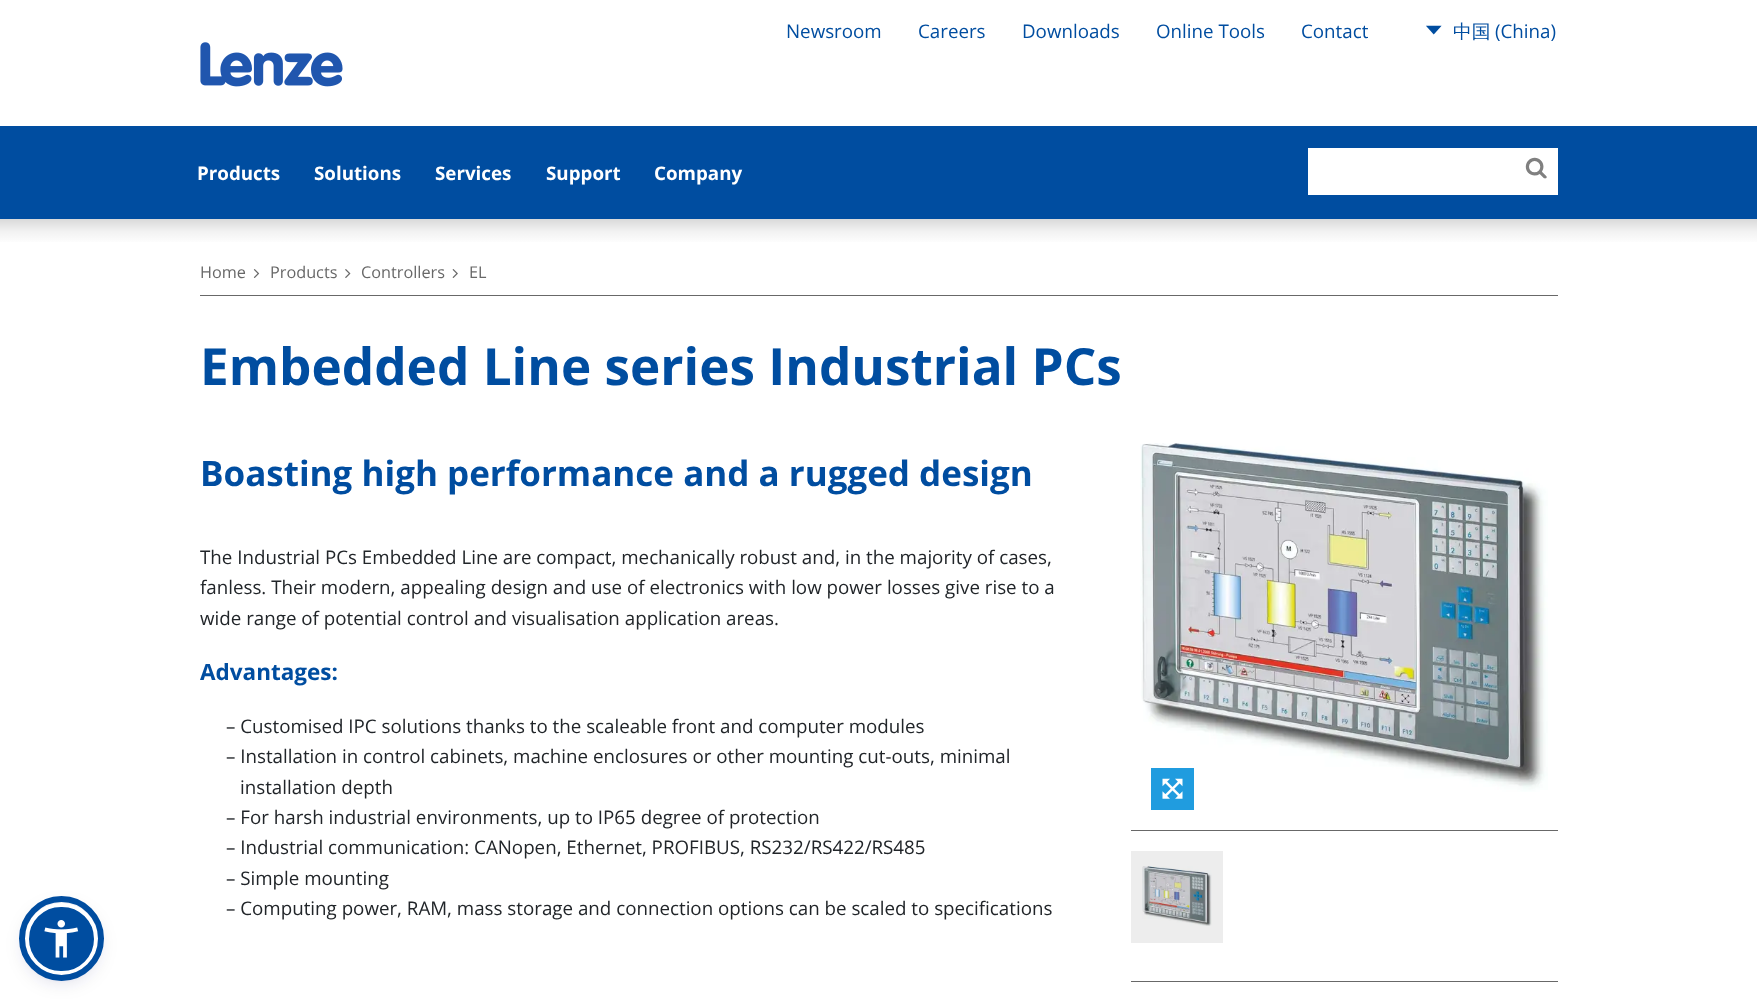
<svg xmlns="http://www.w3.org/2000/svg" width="1757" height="999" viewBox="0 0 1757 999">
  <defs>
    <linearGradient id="g1" gradientUnits="userSpaceOnUse" x1="879" y1="219" x2="879" y2="244"><stop offset="0" stop-color="#d9d9d9"/><stop offset="0.5" stop-color="#f2f2f2"/><stop offset="1" stop-color="#ffffff"/></linearGradient>
    <filter id="blur1" x="-50%" y="-200%" width="200%" height="500%"><feGaussianBlur stdDeviation="2.5"/></filter>
    <filter id="blur2" x="-50%" y="-200%" width="200%" height="500%"><feGaussianBlur stdDeviation="9.5"/></filter>
  </defs>
  <rect width="100%" height="100%" fill="#ffffff"/>
  <rect x="1131" y="851" width="92" height="92" fill="#ededed"/>
  <text x="786" y="38" font-family="Open Sans" font-size="18.75" fill="#004da0">Newsroom</text>
  <text x="918" y="38" font-family="Open Sans" font-size="18.75" fill="#004da0">Careers</text>
  <text x="1022" y="38" font-family="Open Sans" font-size="18.75" fill="#004da0">Downloads</text>
  <text x="1156" y="38" font-family="Open Sans" font-size="18.75" fill="#004da0">Online Tools</text>
  <text x="1301" y="38" font-family="Open Sans" font-size="18.75" fill="#004da0">Contact</text>
  <image x="1426" y="25" width="16" height="10" href="img1.png"/>
  <text x="1453" y="38" font-family="WenQuanYi Zen Hei" font-size="18.75" font-weight="500" fill="#004da0">中国</text>
  <text x="1495" y="38" font-family="Open Sans" font-size="18.75" fill="#004da0">(China)</text>
  <image x="200" y="42" width="143" height="45" href="img2.png"/>
  <rect x="0" y="126" width="1757" height="93" fill="#004da0"/>
  <text x="197" y="180" font-family="Open Sans" font-size="18.75" font-weight="bold" fill="#ffffff">Products</text>
  <text x="314" y="180" font-family="Open Sans" font-size="18.75" font-weight="bold" fill="#ffffff">Solutions</text>
  <text x="435" y="180" font-family="Open Sans" font-size="18.75" font-weight="bold" fill="#ffffff">Services</text>
  <text x="546" y="180" font-family="Open Sans" font-size="18.75" font-weight="bold" fill="#ffffff">Support</text>
  <text x="654" y="180" font-family="Open Sans" font-size="18.75" font-weight="bold" fill="#ffffff">Company</text>
  <rect x="1308" y="148" width="250" height="47" fill="#ffffff"/>
  <image x="1525" y="157" width="22" height="22" href="img3.png"/>
  <rect x="0" y="219" width="1757" height="23" fill="url(#g1)"/>
  <rect x="200" y="295" width="1358" height="1" fill="#686868"/>
  <text x="200" y="278" font-family="Open Sans" font-size="16.25" fill="#686868">Home</text>
  <image x="253" y="269" width="7" height="9" href="img4.png"/>
  <text x="270" y="278" font-family="Open Sans" font-size="16.25" fill="#686868">Products</text>
  <image x="345" y="269" width="6" height="9" href="img5.png"/>
  <text x="361" y="278" font-family="Open Sans" font-size="16.25" fill="#686868">Controllers</text>
  <image x="452" y="269" width="6" height="9" href="img6.png"/>
  <text x="469" y="278" font-family="Open Sans" font-size="16.25" fill="#686868">EL</text>
  <text x="200" y="385" font-family="Open Sans" font-size="51.25" font-weight="bold" fill="#004da0">Embedded Line series Industrial PCs</text>
  <text x="200" y="486" font-family="Open Sans" font-size="35" font-weight="bold" fill="#004da0">Boasting high performance and a rugged design</text>
  <text x="200" y="564" font-family="Open Sans" font-size="18.75" fill="#212529">The Industrial PCs Embedded Line are compact, mechanically robust and, in the majority of cases,</text>
  <text x="200" y="594" font-family="Open Sans" font-size="18.75" fill="#212529">fanless. Their modern, appealing design and use of electronics with low power losses give rise to a</text>
  <text x="200" y="625" font-family="Open Sans" font-size="18.75" fill="#212529">wide range of potential control and visualisation application areas.</text>
  <text x="200" y="680" font-family="Open Sans" font-size="22.5" font-weight="bold" fill="#004da0">Advantages:</text>
  <text x="226" y="733" font-family="Open Sans" font-size="18.75" fill="#212529">– Customised IPC solutions thanks to the scaleable front and computer modules</text>
  <text x="226" y="763" font-family="Open Sans" font-size="18.75" fill="#212529">– Installation in control cabinets, machine enclosures or other mounting cut-outs, minimal</text>
  <text x="240" y="794" font-family="Open Sans" font-size="18.75" fill="#212529">installation depth</text>
  <text x="226" y="824" font-family="Open Sans" font-size="18.75" fill="#212529">– For harsh industrial environments, up to IP65 degree of protection</text>
  <text x="226" y="854" font-family="Open Sans" font-size="18.75" fill="#212529">– Industrial communication: CANopen, Ethernet, PROFIBUS, RS232/RS422/RS485</text>
  <text x="226" y="885" font-family="Open Sans" font-size="18.75" fill="#212529">– Simple mounting</text>
  <text x="226" y="915" font-family="Open Sans" font-size="18.75" fill="#212529">– Computing power, RAM, mass storage and connection options can be scaled to specifications</text>
  <rect x="1131" y="830" width="427" height="1" fill="#686868"/>
  <image x="1140" y="443" width="408" height="349" href="img7.png"/>
  <rect x="1151" y="768" width="43" height="42" fill="#209cdf"/>
  <image x="1162" y="778" width="21" height="21" href="img8.png"/>
  <rect x="1131" y="981" width="427" height="1" fill="#686868"/>
  <image x="1142" y="866" width="70" height="60" href="img9.png"/>
  <rect x="25" y="905" width="73" height="73" rx="36.5" fill="#5d6494" fill-opacity="0.2" filter="url(#blur1)"/>
  <rect x="25" y="909" width="73" height="72" rx="36" fill="#252c61" fill-opacity="0.15" filter="url(#blur2)"/>
  <rect x="27" y="905" width="69" height="68" rx="34" fill="#004da0" stroke="#ffffff" stroke-width="4"/>
  <circle cx="61.5" cy="938.5" r="39.5" fill="none" stroke="#004da0" stroke-width="6"/>
  <image x="44" y="920" width="35" height="38" href="img10.png"/>
</svg>
